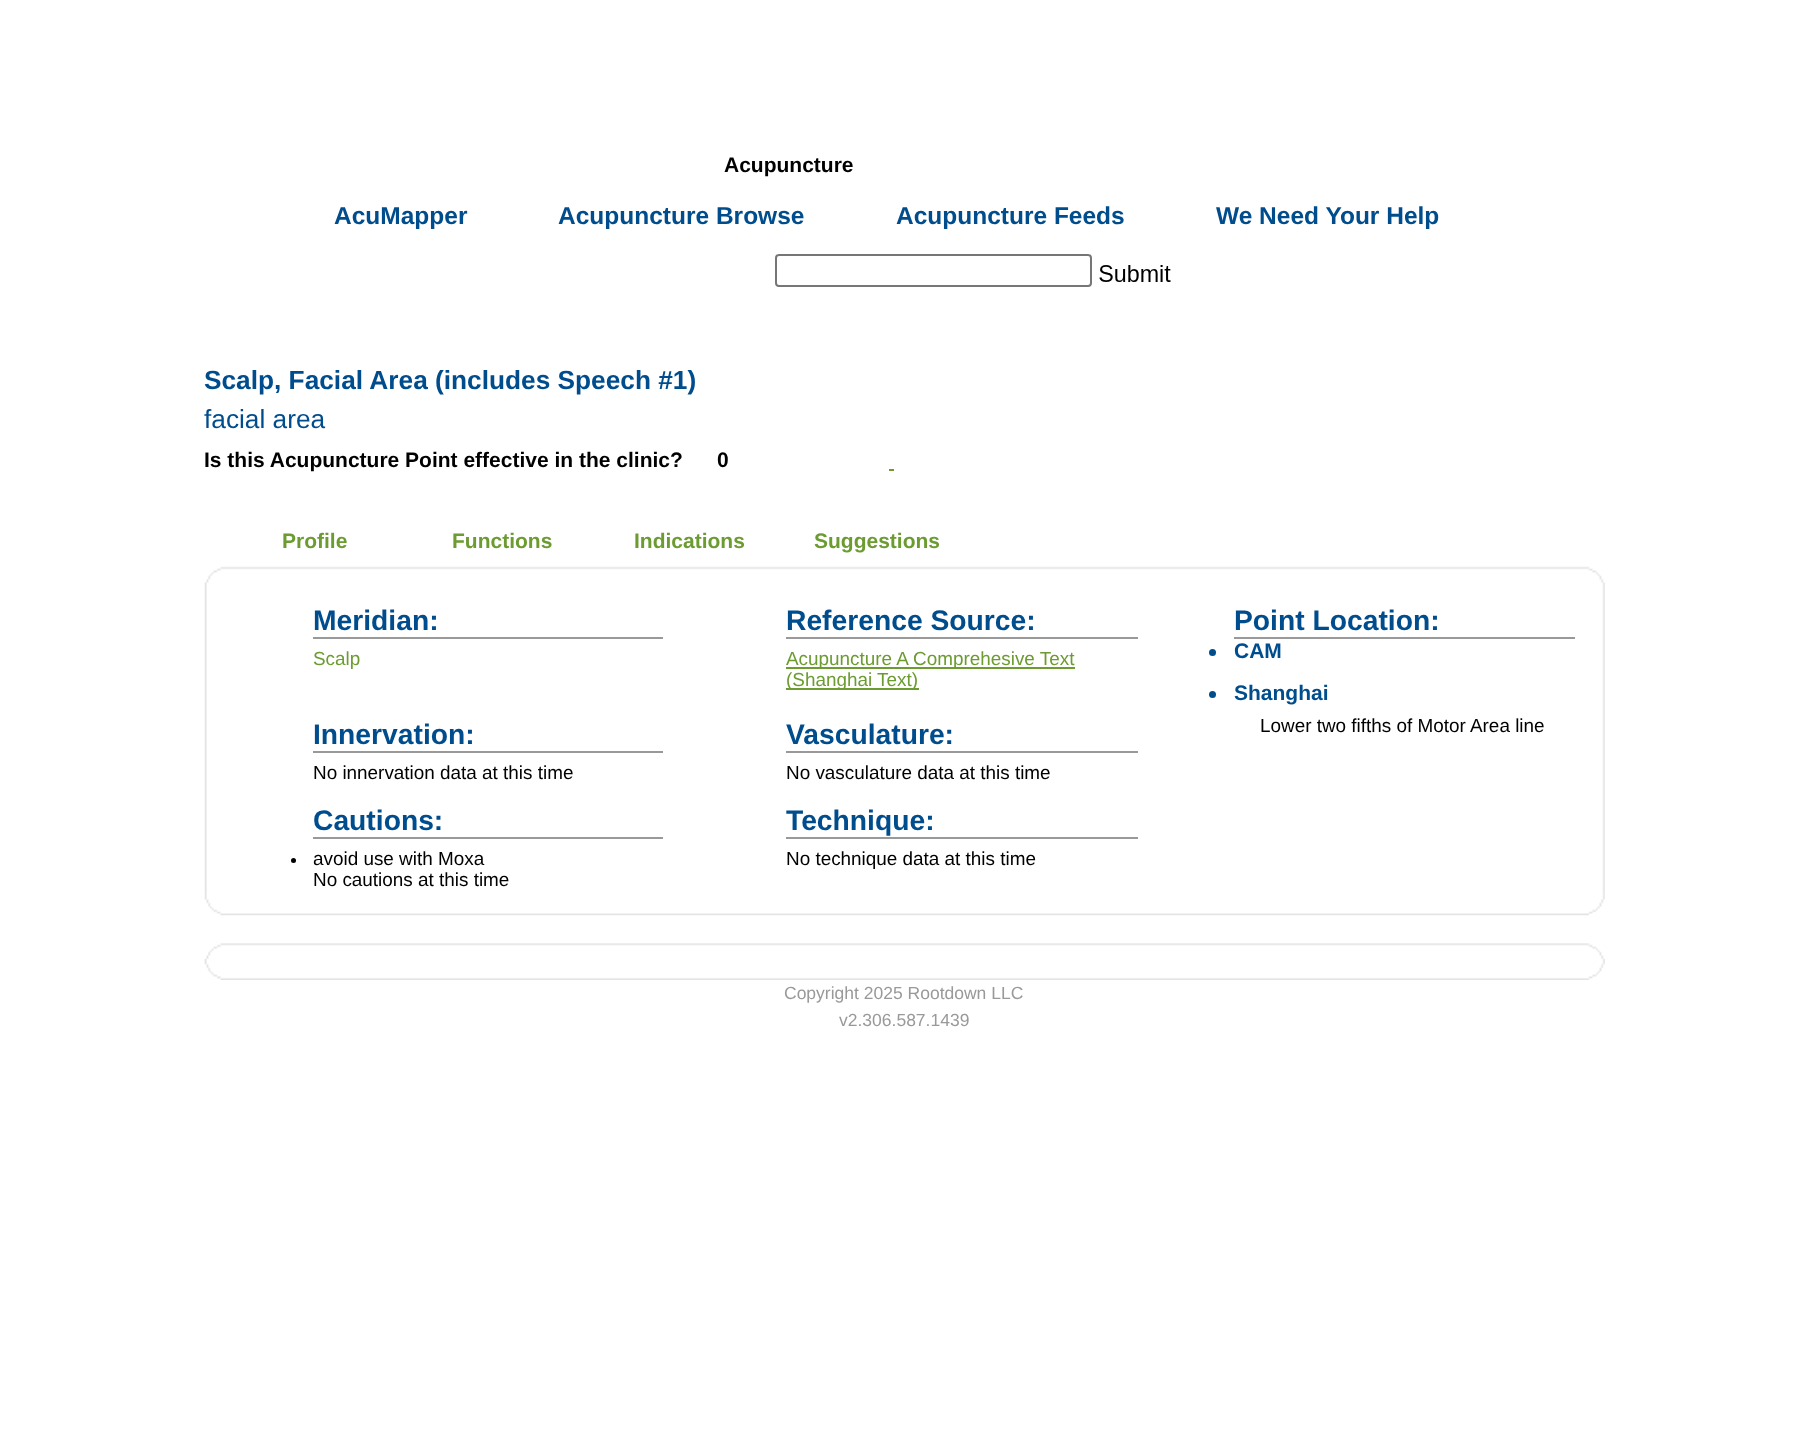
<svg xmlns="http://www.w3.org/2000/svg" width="1807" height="1451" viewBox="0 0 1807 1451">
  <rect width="100%" height="100%" fill="#ffffff"/>
  <text x="724" y="172" font-family="Liberation Sans" font-size="21" font-weight="bold" fill="#000000">Acupuncture</text>
  <text x="334" y="224" font-family="Liberation Sans" font-size="24.5" font-weight="bold" fill="#004d8d">AcuMapper</text>
  <text x="558" y="224" font-family="Liberation Sans" font-size="24.5" font-weight="bold" fill="#004d8d">Acupuncture Browse</text>
  <text x="896" y="224" font-family="Liberation Sans" font-size="24.5" font-weight="bold" fill="#004d8d">Acupuncture Feeds</text>
  <text x="1216" y="224" font-family="Liberation Sans" font-size="24.5" font-weight="bold" fill="#004d8d">We Need Your Help</text>
  <rect x="776" y="255" width="315" height="31" rx="3" fill="none" stroke="#767676" stroke-width="2"/>
  <image x="1099" y="265" width="72" height="17" href="img1.png"/>
  <text x="204" y="389" font-family="Liberation Sans" font-size="26.25" font-weight="bold" fill="#004d8d">Scalp, Facial Area (includes Speech #1)</text>
  <text x="204" y="428" font-family="Liberation Sans" font-size="26.25" fill="#004d8d">facial area</text>
  <text x="204" y="467" font-family="Liberation Sans" font-size="21" font-weight="bold" fill="#000000">Is this Acupuncture Point effective in the clinic?</text>
  <text x="717" y="467" font-family="Liberation Sans" font-size="21" font-weight="bold" fill="#000000">0</text>
  <rect x="889" y="469" width="5" height="2" fill="#6c9c31"/>
  <text x="282" y="548" font-family="Liberation Sans" font-size="21" font-weight="bold" fill="#6c9c31">Profile</text>
  <text x="452" y="548" font-family="Liberation Sans" font-size="21" font-weight="bold" fill="#6c9c31">Functions</text>
  <text x="634" y="548" font-family="Liberation Sans" font-size="21" font-weight="bold" fill="#6c9c31">Indications</text>
  <text x="814" y="548" font-family="Liberation Sans" font-size="21" font-weight="bold" fill="#6c9c31">Suggestions</text>
  <image x="204" y="566" width="1401" height="19" href="img2.png"/>
  <image x="204" y="582" width="1401" height="313" href="img3.png"/>
  <rect x="313" y="637" width="350" height="2" fill="#999999"/>
  <text x="313" y="630" font-family="Liberation Sans" font-size="28.25" font-weight="bold" fill="#004d8d">Meridian:</text>
  <text x="313" y="665" font-family="Liberation Sans" font-size="18.9" fill="#6c9c31">Scalp</text>
  <rect x="786" y="637" width="352" height="2" fill="#999999"/>
  <text x="786" y="630" font-family="Liberation Sans" font-size="28.25" font-weight="bold" fill="#004d8d">Reference Source:</text>
  <rect x="786" y="667" width="289" height="2" fill="#6c9c31"/>
  <text x="786" y="665" font-family="Liberation Sans" font-size="18.9" fill="#6c9c31">Acupuncture A Comprehesive Text</text>
  <rect x="786" y="688" width="133" height="2" fill="#6c9c31"/>
  <text x="786" y="686" font-family="Liberation Sans" font-size="18.9" fill="#6c9c31">(Shanghai Text)</text>
  <rect x="1234" y="637" width="341" height="2" fill="#999999"/>
  <text x="1234" y="630" font-family="Liberation Sans" font-size="28.25" font-weight="bold" fill="#004d8d">Point Location:</text>
  <circle cx="1212.5" cy="652.5" r="3.5" fill="#004d8d"/>
  <text x="1234" y="658" font-family="Liberation Sans" font-size="21" font-weight="bold" fill="#004d8d">CAM</text>
  <circle cx="1212.5" cy="694.5" r="3.5" fill="#004d8d"/>
  <text x="1234" y="700" font-family="Liberation Sans" font-size="21" font-weight="bold" fill="#004d8d">Shanghai</text>
  <text x="1260" y="732" font-family="Liberation Sans" font-size="18.9" fill="#000000">Lower two fifths of Motor Area line</text>
  <rect x="313" y="751" width="350" height="2" fill="#999999"/>
  <text x="313" y="744" font-family="Liberation Sans" font-size="28.25" font-weight="bold" fill="#004d8d">Innervation:</text>
  <text x="313" y="779" font-family="Liberation Sans" font-size="18.9" fill="#000000">No innervation data at this time</text>
  <rect x="786" y="751" width="352" height="2" fill="#999999"/>
  <text x="786" y="744" font-family="Liberation Sans" font-size="28.25" font-weight="bold" fill="#004d8d">Vasculature:</text>
  <text x="786" y="779" font-family="Liberation Sans" font-size="18.9" fill="#000000">No vasculature data at this time</text>
  <rect x="313" y="837" width="350" height="2" fill="#999999"/>
  <text x="313" y="830" font-family="Liberation Sans" font-size="28.25" font-weight="bold" fill="#004d8d">Cautions:</text>
  <circle cx="293.5" cy="860.5" r="2.5" fill="#000000"/>
  <text x="313" y="865" font-family="Liberation Sans" font-size="18.9" fill="#000000">avoid use with Moxa</text>
  <text x="313" y="886" font-family="Liberation Sans" font-size="18.9" fill="#000000">No cautions at this time</text>
  <rect x="786" y="837" width="352" height="2" fill="#999999"/>
  <text x="786" y="830" font-family="Liberation Sans" font-size="28.25" font-weight="bold" fill="#004d8d">Technique:</text>
  <text x="786" y="865" font-family="Liberation Sans" font-size="18.9" fill="#000000">No technique data at this time</text>
  <image x="204" y="894" width="1401" height="22" href="img4.png"/>
  <image x="204" y="943" width="1401" height="18" href="img5.png"/>
  <image x="204" y="959" width="1401" height="21" href="img6.png"/>
  <text x="784" y="999" font-family="Liberation Sans" font-size="17.5" fill="#999999">Copyright 2025 Rootdown LLC</text>
  <text x="839" y="1026" font-family="Liberation Sans" font-size="17.5" fill="#999999">v2.306.587.1439</text>
</svg>
